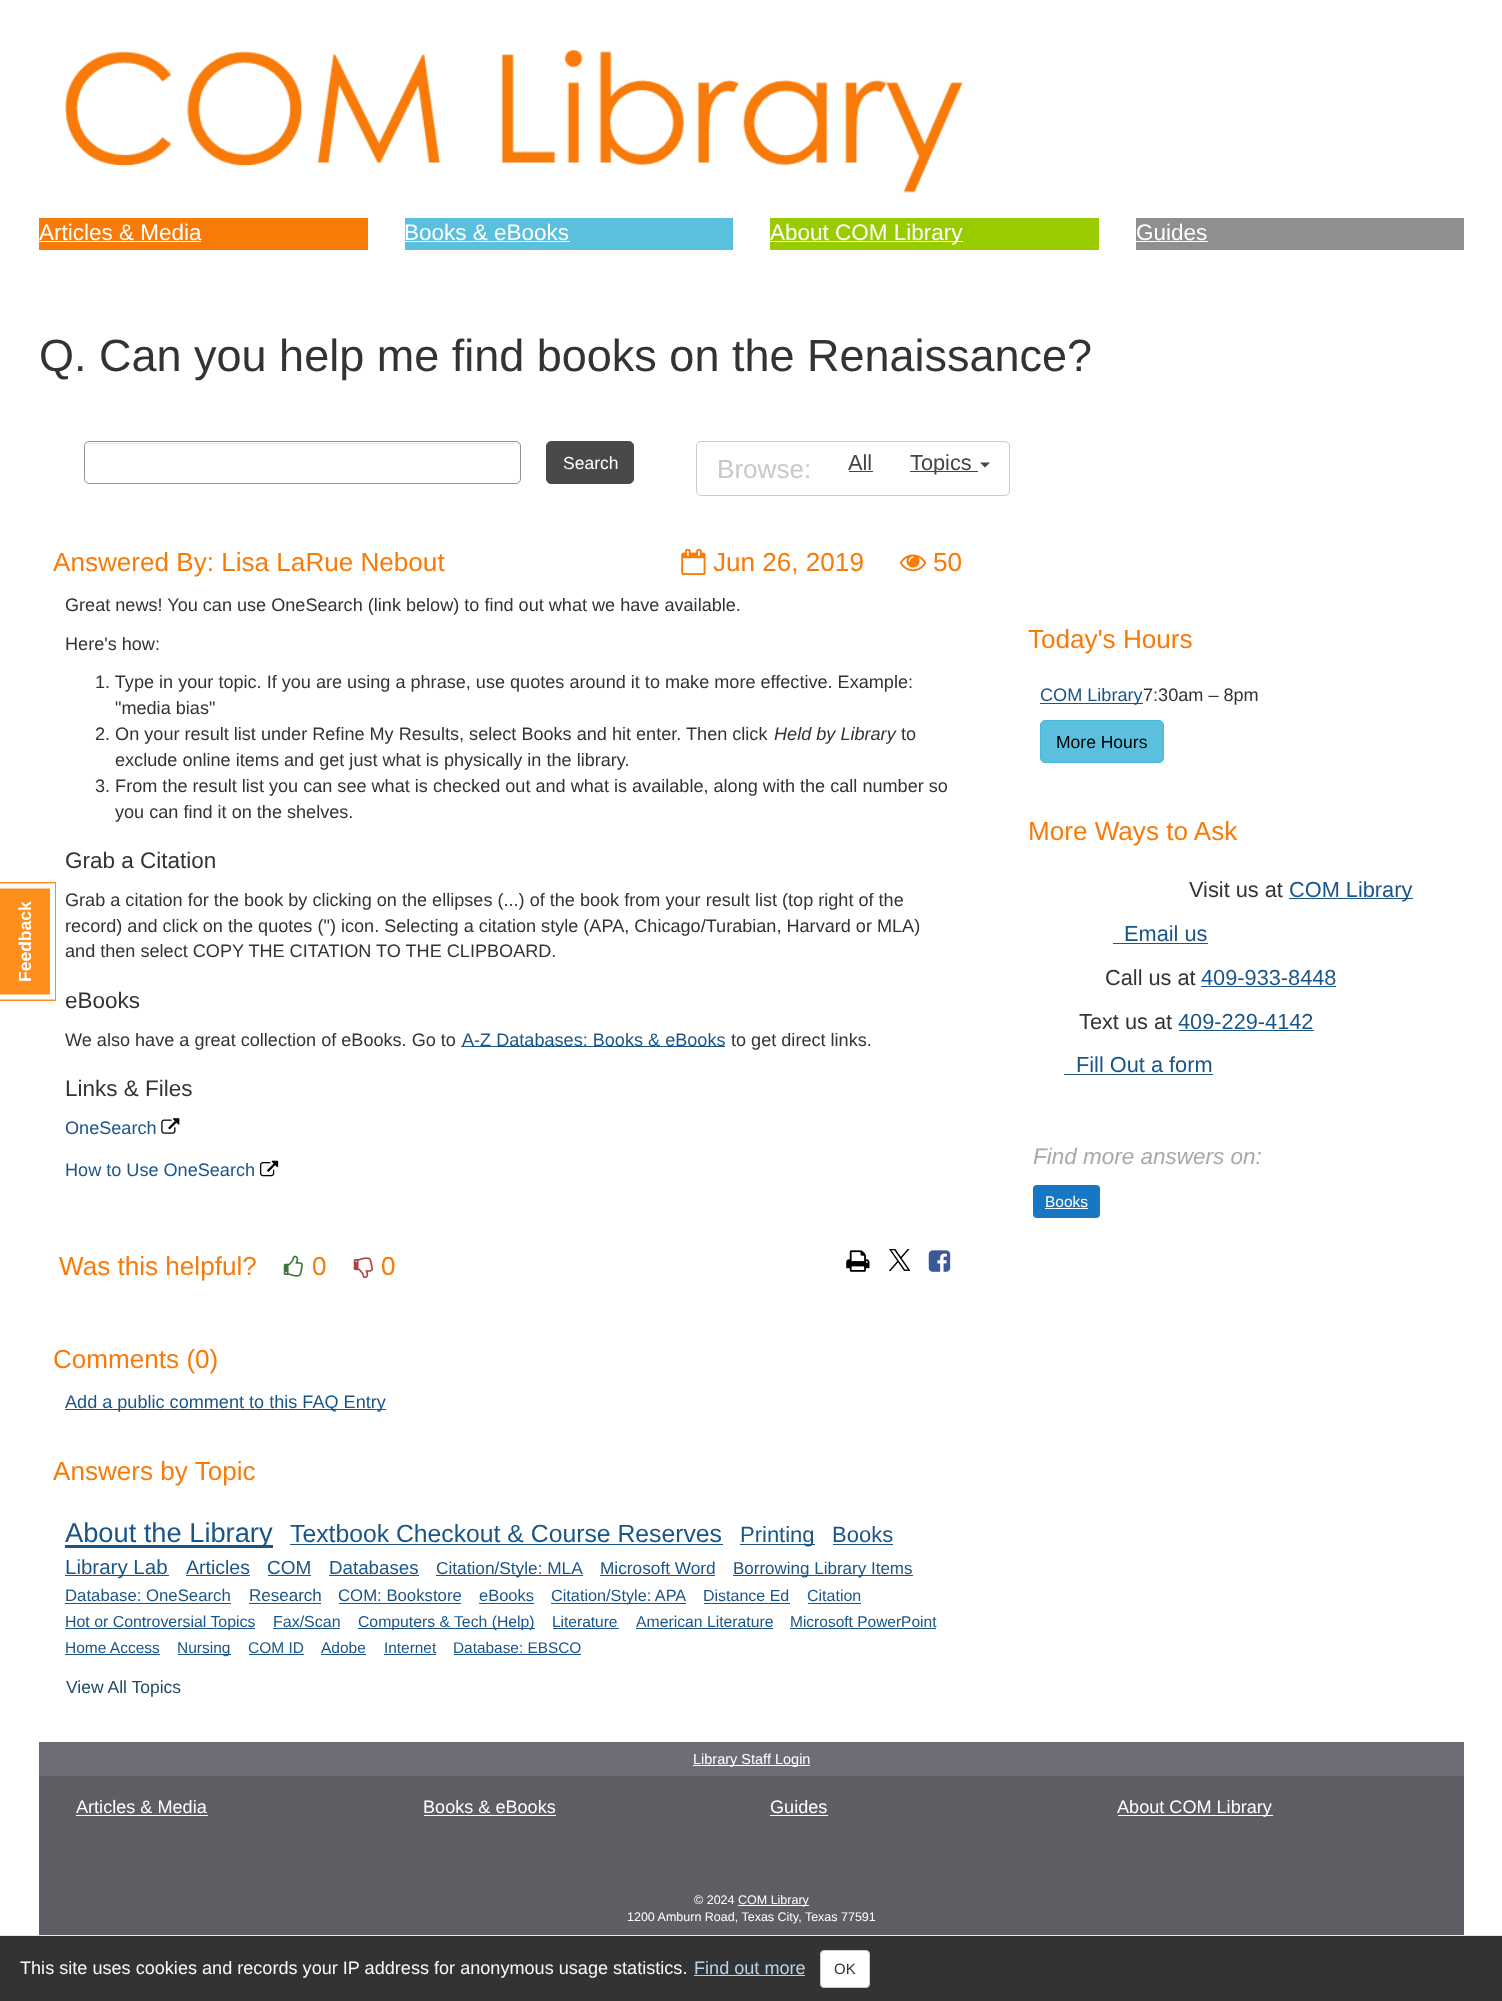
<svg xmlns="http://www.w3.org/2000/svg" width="1502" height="2001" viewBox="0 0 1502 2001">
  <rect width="100%" height="100%" fill="#ffffff"/>
  <image x="64" y="49" width="899" height="144" href="img1.png"/>
  <rect x="39" y="218" width="329" height="32" fill="#f87a08"/>
  <text x="39" y="240" font-family="Liberation Sans" font-size="22.5" fill="#ffffff">Articles &amp; Media</text>
  <rect x="39" y="241" width="162" height="1" fill="#ffffff"/>
  <rect x="405" y="218" width="328" height="32" fill="#5bc0de"/>
  <text x="404" y="240" font-family="Liberation Sans" font-size="22.5" fill="#ffffff">Books &amp; eBooks</text>
  <rect x="405" y="241" width="165" height="1" fill="#ffffff"/>
  <rect x="770" y="218" width="329" height="32" fill="#99cc00"/>
  <rect x="770" y="241" width="193" height="1" fill="#ffffff"/>
  <text x="770" y="240" font-family="Liberation Sans" font-size="22.5" fill="#ffffff">About COM Library</text>
  <rect x="1136" y="218" width="328" height="32" fill="#908e8e"/>
  <text x="1136" y="240" font-family="Liberation Sans" font-size="22.5" fill="#ffffff">Guides</text>
  <rect x="1136" y="241" width="72" height="1" fill="#ffffff"/>
  <rect x="0" y="882" width="56" height="119" fill="#ff8e1b"/>
  <path d="M-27.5 997V886H52.5V997Z" fill="none" stroke="#ffffff" stroke-width="5"/>
  <text x="31" y="982" transform="rotate(-90 31 982)" font-family="Liberation Sans" font-size="17.5" font-weight="bold" fill="#ffffff">Feedback</text>
  <text x="39" y="371" font-family="Liberation Sans" font-size="45" fill="#333333">Q. Can you help me find books on the Renaissance?</text>
  <path d="M89 444H516C518 444 520 445 520 448C520 445 519 443 516 443H89L87 444L86 445L85 448C85 445 87 444 89 444Z" fill="#ececec"/>
  <rect x="84.5" y="441.5" width="436" height="42" rx="4.5" fill="none" stroke="#919191"/>
  <rect x="546.5" y="441.5" width="87" height="42" rx="4.5" fill="#494949" stroke="#494949"/>
  <text x="563" y="469" font-family="Liberation Sans" font-size="17.5" fill="#ffffff">Search</text>
  <rect x="696.5" y="441.5" width="313" height="54" rx="4.5" fill="none" stroke="#cccccc"/>
  <text x="717" y="478" font-family="Liberation Sans" font-size="26.1" fill="#c8c8c8">Browse:</text>
  <text x="848" y="470" font-family="Liberation Sans" font-size="21.75" fill="#454545">All</text>
  <rect x="849" y="471" width="24" height="1" fill="#454545"/>
  <rect x="910" y="471" width="68" height="1" fill="#454545"/>
  <text x="910" y="470" font-family="Liberation Sans" font-size="21.75" fill="#454545">Topics</text>
  <path d="M980 462.5H990L985 467.5Z" fill="#454545"/>
  <text x="53" y="571" font-family="Liberation Sans" font-size="26.1" fill="#f87a08">Answered By: Lisa LaRue Nebout</text>
  <image x="681" y="548" width="25" height="27" href="img2.png"/>
  <text x="713" y="571" font-family="Liberation Sans" font-size="26.1" fill="#f87a08">Jun 26, 2019</text>
  <image x="900" y="554" width="27" height="18" href="img3.png"/>
  <text x="933" y="571" font-family="Liberation Sans" font-size="26.1" fill="#f87a08">50</text>
  <text x="65" y="611" font-family="Liberation Sans" font-size="18.1" fill="#333333">Great news! You can use OneSearch (link below) to find out what we have available.</text>
  <text x="65" y="650" font-family="Liberation Sans" font-size="18.1" fill="#333333">Here's how:</text>
  <text x="95" y="688" font-family="Liberation Sans" font-size="18.1" fill="#333333">1. Type in your topic. If you are using a phrase, use quotes around it to make more effective. Example:</text>
  <text x="115" y="714" font-family="Liberation Sans" font-size="18.1" fill="#333333">"media bias"</text>
  <text x="95" y="740" font-family="Liberation Sans" font-size="18.1" fill="#333333">2. On your result list under Refine My Results, select Books and hit enter. Then click</text>
  <text x="774" y="740" font-family="Liberation Sans" font-size="18.1" font-style="italic" fill="#333333">Held by Library</text>
  <text x="901" y="740" font-family="Liberation Sans" font-size="18.1" fill="#333333">to</text>
  <text x="115" y="766" font-family="Liberation Sans" font-size="18.1" fill="#333333">exclude online items and get just what is physically in the library.</text>
  <text x="95" y="792" font-family="Liberation Sans" font-size="18.1" fill="#333333">3. From the result list you can see what is checked out and what is available, along with the call number so</text>
  <text x="115" y="818" font-family="Liberation Sans" font-size="18.1" fill="#333333">you can find it on the shelves.</text>
  <text x="65" y="868" font-family="Liberation Sans" font-size="22.5" fill="#333333">Grab a Citation</text>
  <text x="65" y="906" font-family="Liberation Sans" font-size="18.1" fill="#333333">Grab a citation for the book by clicking on the ellipses (...) of the book from your result list (top right of the</text>
  <text x="65" y="932" font-family="Liberation Sans" font-size="18.1" fill="#333333">record) and click on the quotes (") icon. Selecting a citation style (APA, Chicago/Turabian, Harvard or MLA)</text>
  <text x="65" y="957" font-family="Liberation Sans" font-size="18.1" fill="#333333">and then select COPY THE CITATION TO THE CLIPBOARD.</text>
  <text x="65" y="1008" font-family="Liberation Sans" font-size="22.5" fill="#333333">eBooks</text>
  <text x="65" y="1046" font-family="Liberation Sans" font-size="18.1" fill="#333333">We also have a great collection of eBooks. Go to</text>
  <rect x="461" y="1046" width="264" height="1" fill="#1a5588"/>
  <text x="462" y="1046" font-family="Liberation Sans" font-size="18.1" fill="#1a5588">A-Z Databases: Books &amp; eBooks</text>
  <text x="731" y="1046" font-family="Liberation Sans" font-size="18.1" fill="#333333">to get direct links.</text>
  <text x="65" y="1096" font-family="Liberation Sans" font-size="22.5" fill="#333333">Links &amp; Files</text>
  <text x="65" y="1134" font-family="Liberation Sans" font-size="18.1" fill="#1a5588">OneSearch</text>
  <image x="161" y="1118" width="19" height="16" href="img4.png"/>
  <text x="65" y="1176" font-family="Liberation Sans" font-size="18.1" fill="#1a5588">How to Use OneSearch</text>
  <image x="260" y="1160" width="19" height="17" href="img5.png"/>
  <text x="59" y="1275" font-family="Liberation Sans" font-size="26.1" fill="#f87a08">Was this helpful?</text>
  <image x="283" y="1255" width="20" height="22" href="img6.png"/>
  <text x="312" y="1275" font-family="Liberation Sans" font-size="26.1" fill="#f87a08">0</text>
  <image x="353" y="1257" width="20" height="22" href="img7.png"/>
  <text x="381" y="1275" font-family="Liberation Sans" font-size="26.1" fill="#f87a08">0</text>
  <image x="846" y="1250" width="24" height="22" href="img8.png"/>
  <image x="889" y="1249" width="21" height="22" href="img9.png"/>
  <image x="928" y="1250" width="23" height="22" href="img10.png"/>
  <text x="53" y="1368" font-family="Liberation Sans" font-size="26.1" fill="#f87a08">Comments (0)</text>
  <rect x="65" y="1409" width="321" height="1" fill="#1a5588"/>
  <text x="65" y="1408" font-family="Liberation Sans" font-size="18.1" fill="#1a5588">Add a public comment to this FAQ Entry</text>
  <text x="53" y="1480" font-family="Liberation Sans" font-size="26.1" fill="#f87a08">Answers by Topic</text>
  <rect x="65" y="1545" width="208" height="3" fill="#1a5588"/>
  <text x="65" y="1542" font-family="Liberation Sans" font-size="27.25" fill="#1a5588">About the Library</text>
  <text x="290" y="1542" font-family="Liberation Sans" font-size="24.75" fill="#1a5588">Textbook Checkout &amp; Course Reserves</text>
  <rect x="290" y="1544" width="433" height="1" fill="#1a5588"/>
  <rect x="740" y="1544" width="75" height="1" fill="#1a5588"/>
  <text x="740" y="1542" font-family="Liberation Sans" font-size="22" fill="#1a5588">Printing</text>
  <text x="832" y="1542" font-family="Liberation Sans" font-size="22" fill="#1a5588">Books</text>
  <rect x="833" y="1544" width="60" height="1" fill="#1a5588"/>
  <rect x="65" y="1575" width="104" height="1" fill="#1a5588"/>
  <text x="65" y="1574" font-family="Liberation Sans" font-size="20.5" fill="#1a5588">Library Lab</text>
  <text x="186" y="1574" font-family="Liberation Sans" font-size="19.5" fill="#1a5588">Articles</text>
  <rect x="186" y="1575" width="64" height="1" fill="#1a5588"/>
  <text x="267" y="1574" font-family="Liberation Sans" font-size="19" fill="#1a5588">COM</text>
  <rect x="268" y="1575" width="43" height="1" fill="#1a5588"/>
  <text x="329" y="1574" font-family="Liberation Sans" font-size="18.75" fill="#1a5588">Databases</text>
  <rect x="329" y="1575" width="90" height="1" fill="#1a5588"/>
  <rect x="436" y="1575" width="147" height="1" fill="#1a5588"/>
  <text x="436" y="1574" font-family="Liberation Sans" font-size="17.25" fill="#1a5588">Citation/Style: MLA</text>
  <text x="600" y="1574" font-family="Liberation Sans" font-size="17.25" fill="#1a5588">Microsoft Word</text>
  <rect x="600" y="1575" width="115" height="1" fill="#1a5588"/>
  <rect x="733" y="1575" width="180" height="1" fill="#1a5588"/>
  <text x="733" y="1574" font-family="Liberation Sans" font-size="17" fill="#1a5588">Borrowing Library Items</text>
  <text x="65" y="1601" font-family="Liberation Sans" font-size="16.75" fill="#1a5588">Database: OneSearch</text>
  <rect x="65" y="1603" width="166" height="1" fill="#1a5588"/>
  <text x="249" y="1601" font-family="Liberation Sans" font-size="17" fill="#1a5588">Research</text>
  <rect x="249" y="1603" width="72" height="1" fill="#1a5588"/>
  <text x="338" y="1601" font-family="Liberation Sans" font-size="16.75" fill="#1a5588">COM: Bookstore</text>
  <rect x="339" y="1603" width="122" height="1" fill="#1a5588"/>
  <text x="479" y="1601" font-family="Liberation Sans" font-size="16.5" fill="#1a5588">eBooks</text>
  <rect x="479" y="1603" width="55" height="1" fill="#1a5588"/>
  <rect x="551" y="1603" width="135" height="1" fill="#1a5588"/>
  <text x="551" y="1601" font-family="Liberation Sans" font-size="16.25" fill="#1a5588">Citation/Style: APA</text>
  <text x="703" y="1601" font-family="Liberation Sans" font-size="16" fill="#1a5588">Distance Ed</text>
  <rect x="704" y="1603" width="86" height="1" fill="#1a5588"/>
  <text x="807" y="1601" font-family="Liberation Sans" font-size="16" fill="#1a5588">Citation</text>
  <rect x="808" y="1603" width="53" height="1" fill="#1a5588"/>
  <rect x="65" y="1628" width="190" height="1" fill="#1a5588"/>
  <text x="65" y="1627" font-family="Liberation Sans" font-size="15.9" fill="#1a5588">Hot or Controversial Topics</text>
  <text x="273" y="1627" font-family="Liberation Sans" font-size="16" fill="#1a5588">Fax/Scan</text>
  <rect x="273" y="1628" width="67" height="1" fill="#1a5588"/>
  <rect x="358" y="1628" width="177" height="1" fill="#1a5588"/>
  <text x="358" y="1627" font-family="Liberation Sans" font-size="15.75" fill="#1a5588">Computers &amp; Tech (Help)</text>
  <text x="552" y="1627" font-family="Liberation Sans" font-size="15.5" fill="#1a5588">Literature</text>
  <rect x="553" y="1628" width="66" height="1" fill="#1a5588"/>
  <text x="636" y="1627" font-family="Liberation Sans" font-size="15.75" fill="#1a5588">American Literature</text>
  <rect x="636" y="1628" width="137" height="1" fill="#1a5588"/>
  <text x="790" y="1627" font-family="Liberation Sans" font-size="15.5" fill="#1a5588">Microsoft PowerPoint</text>
  <rect x="790" y="1628" width="146" height="1" fill="#1a5588"/>
  <text x="65" y="1653" font-family="Liberation Sans" font-size="15.5" fill="#1a5588">Home Access</text>
  <rect x="65" y="1654" width="95" height="1" fill="#1a5588"/>
  <rect x="178" y="1654" width="53" height="1" fill="#1a5588"/>
  <text x="177" y="1653" font-family="Liberation Sans" font-size="15.5" fill="#1a5588">Nursing</text>
  <text x="248" y="1653" font-family="Liberation Sans" font-size="15.5" fill="#1a5588">COM ID</text>
  <rect x="249" y="1654" width="55" height="1" fill="#1a5588"/>
  <text x="321" y="1653" font-family="Liberation Sans" font-size="15.5" fill="#1a5588">Adobe</text>
  <rect x="321" y="1654" width="45" height="1" fill="#1a5588"/>
  <text x="384" y="1653" font-family="Liberation Sans" font-size="15.4" fill="#1a5588">Internet</text>
  <rect x="384" y="1654" width="52" height="1" fill="#1a5588"/>
  <text x="453" y="1653" font-family="Liberation Sans" font-size="15.4" fill="#1a5588">Database: EBSCO</text>
  <rect x="454" y="1654" width="127" height="1" fill="#1a5588"/>
  <text x="66" y="1693" font-family="Liberation Sans" font-size="17.5" fill="#214c62">View All Topics</text>
  <text x="1028" y="648" font-family="Liberation Sans" font-size="26.1" fill="#f87a08">Today's Hours</text>
  <rect x="1040" y="703" width="103" height="1" fill="#1a5588"/>
  <text x="1040" y="701" font-family="Liberation Sans" font-size="18.1" fill="#1a5588">COM Library</text>
  <text x="1143" y="701" font-family="Liberation Sans" font-size="18.1" fill="#333333">7:30am – 8pm</text>
  <rect x="1040.5" y="720.5" width="123" height="42" rx="4.5" fill="#5bc0de" stroke="#46b8da"/>
  <text x="1056" y="748" font-family="Liberation Sans" font-size="17.5" fill="#000000">More Hours</text>
  <text x="1028" y="840" font-family="Liberation Sans" font-size="26.1" fill="#f87a08">More Ways to Ask</text>
  <text x="1189" y="897" font-family="Liberation Sans" font-size="21.75" fill="#333333">Visit us at</text>
  <rect x="1289" y="898" width="124" height="1" fill="#1a5588"/>
  <text x="1289" y="897" font-family="Liberation Sans" font-size="21.75" fill="#1a5588">COM Library</text>
  <text x="1124" y="941" font-family="Liberation Sans" font-size="21.75" fill="#1a5588">Email us</text>
  <rect x="1113" y="943" width="95" height="1" fill="#1a5588"/>
  <text x="1105" y="985" font-family="Liberation Sans" font-size="21.75" fill="#333333">Call us at</text>
  <text x="1201" y="985" font-family="Liberation Sans" font-size="21.75" fill="#1a5588">409-933-8448</text>
  <rect x="1201" y="986" width="135" height="1" fill="#1a5588"/>
  <text x="1079" y="1029" font-family="Liberation Sans" font-size="21.75" fill="#333333">Text us at</text>
  <text x="1178" y="1029" font-family="Liberation Sans" font-size="21.75" fill="#1a5588">409-229-4142</text>
  <rect x="1179" y="1030" width="135" height="1" fill="#1a5588"/>
  <text x="1076" y="1072" font-family="Liberation Sans" font-size="21.75" fill="#1a5588">Fill Out a form</text>
  <rect x="1064" y="1074" width="149" height="1" fill="#1a5588"/>
  <text x="1033" y="1164" font-family="Liberation Sans" font-size="22.5" font-style="italic" fill="#a8a8a8">Find more answers on:</text>
  <rect x="1033" y="1185" width="67" height="33" rx="4" fill="#1877c4"/>
  <text x="1045" y="1207" font-family="Liberation Sans" font-size="15.5" fill="#ffffff">Books</text>
  <rect x="1045" y="1208" width="43" height="1" fill="#ffffff"/>
  <rect x="39" y="1742" width="1425" height="34" fill="#6d6e75"/>
  <rect x="693" y="1765" width="117" height="1" fill="#ffffff"/>
  <text x="693" y="1764" font-family="Liberation Sans" font-size="14.5" fill="#ffffff">Library Staff Login</text>
  <rect x="39" y="1776" width="1425" height="159" fill="#5e5f65"/>
  <text x="76" y="1813" font-family="Liberation Sans" font-size="18.1" fill="#ffffff">Articles &amp; Media</text>
  <rect x="76" y="1815" width="132" height="1" fill="#ffffff"/>
  <text x="423" y="1813" font-family="Liberation Sans" font-size="18.1" fill="#ffffff">Books &amp; eBooks</text>
  <rect x="424" y="1815" width="132" height="1" fill="#ffffff"/>
  <text x="770" y="1813" font-family="Liberation Sans" font-size="18.1" fill="#ffffff">Guides</text>
  <rect x="770" y="1815" width="58" height="1" fill="#ffffff"/>
  <rect x="1118" y="1815" width="155" height="1" fill="#ffffff"/>
  <text x="1117" y="1813" font-family="Liberation Sans" font-size="18.1" fill="#ffffff">About COM Library</text>
  <text x="694" y="1904" font-family="Liberation Sans" font-size="12.5" fill="#ffffff">© 2024</text>
  <rect x="738" y="1905" width="71" height="1" fill="#ffffff"/>
  <text x="738" y="1904" font-family="Liberation Sans" font-size="12.5" fill="#ffffff">COM Library</text>
  <text x="627" y="1921" font-family="Liberation Sans" font-size="12.5" fill="#ffffff">1200 Amburn Road, Texas City, Texas 77591</text>
  <rect x="0" y="1936" width="1502" height="65" fill="#333333"/>
  <rect x="0" y="1935" width="1502" height="1" fill="#e7e7e7"/>
  <text x="20" y="1974" font-family="Liberation Sans" font-size="18.1" fill="#f8f8f8">This site uses cookies and records your IP address for anonymous usage statistics.</text>
  <text x="694" y="1974" font-family="Liberation Sans" font-size="18.1" fill="#b9d3eb">Find out more</text>
  <rect x="694" y="1975" width="111" height="1" fill="#b9d3eb"/>
  <rect x="820.5" y="1950.5" width="49" height="37" rx="3.5" fill="#ffffff" stroke="#cccccc"/>
  <text x="834" y="1974" font-family="Liberation Sans" font-size="15" fill="#333333">OK</text>
</svg>
